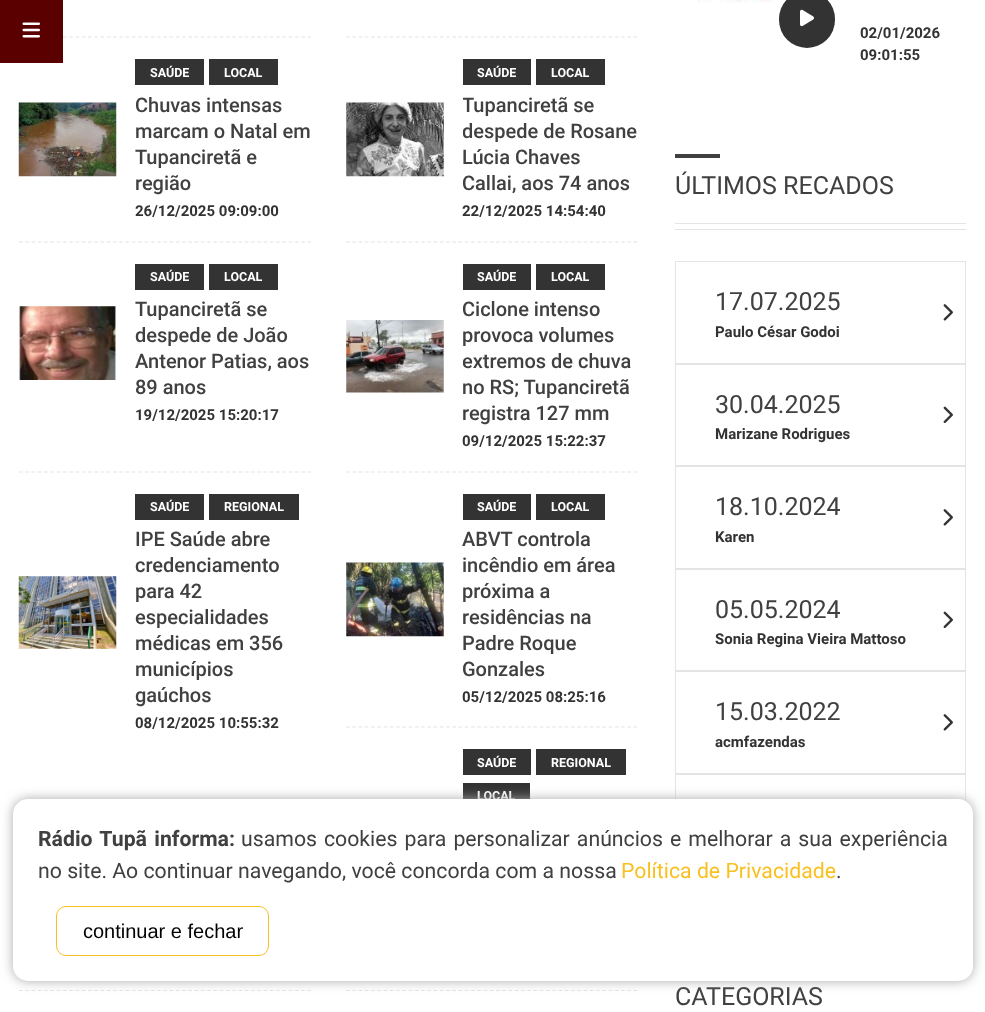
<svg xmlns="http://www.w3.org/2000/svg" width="985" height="1012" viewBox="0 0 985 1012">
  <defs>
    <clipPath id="clip1"><rect x="463" y="93" width="175" height="105"/></clipPath>
    <clipPath id="clip2"><rect x="463" y="298" width="175" height="130"/></clipPath>
    <filter id="blur1" x="-50%" y="-200%" width="200%" height="500%"><feGaussianBlur stdDeviation="6"/></filter>
  </defs>
  <rect width="100%" height="100%" fill="#ffffff"/>
  <path d="M19 37H311" fill="none" stroke="#e4e4e4" stroke-width="1.2" stroke-dasharray="3.75 2.52"/>
  <rect x="0" y="0" width="63" height="63" fill="#5b0000"/>
  <image x="22" y="22" width="18" height="16" href="img1.png"/>
  <image x="18" y="102" width="99" height="75" href="img2.png"/>
  <rect x="135" y="59" width="69" height="26" fill="#333333"/>
  <text x="150" y="77" font-family="Roboto" font-size="12.5" font-weight="bold" fill="#ffffff">SAÚDE</text>
  <rect x="209" y="59" width="69" height="26" fill="#333333"/>
  <text x="224" y="77" font-family="Roboto" font-size="12.5" font-weight="bold" fill="#ffffff">LOCAL</text>
  <text x="135" y="112" font-family="Roboto" font-size="20" font-weight="500" fill="#404041">Chuvas intensas</text>
  <text x="135" y="138" font-family="Roboto" font-size="20" font-weight="500" fill="#404041">marcam o Natal em</text>
  <text x="135" y="164" font-family="Roboto" font-size="20" font-weight="500" fill="#404041">Tupanciretã e</text>
  <text x="135" y="190" font-family="Roboto" font-size="20" font-weight="500" fill="#404041">região</text>
  <text x="135" y="216" font-family="Roboto" font-size="15" font-weight="bold" fill="#333333">26/12/2025 09:09:00</text>
  <path d="M346 37H637.5" fill="none" stroke="#e4e4e4" stroke-width="1.2" stroke-dasharray="3.75 2.5"/>
  <image x="346" y="102" width="98" height="75" href="img3.png"/>
  <rect x="463" y="59" width="68" height="26" fill="#333333"/>
  <text x="477" y="77" font-family="Roboto" font-size="12.5" font-weight="bold" fill="#ffffff">SAÚDE</text>
  <rect x="536" y="59" width="69" height="26" fill="#333333"/>
  <text x="551" y="77" font-family="Roboto" font-size="12.5" font-weight="bold" fill="#ffffff">LOCAL</text>
  <g clip-path="url(#clip1)">
    <text x="462" y="112" font-family="Roboto" font-size="20" font-weight="500" fill="#404041">Tupanciretã se</text>
    <text x="462" y="138" font-family="Roboto" font-size="20" font-weight="500" fill="#404041">despede de Rosane</text>
  </g>
  <text x="462" y="164" font-family="Roboto" font-size="20" font-weight="500" fill="#404041">Lúcia Chaves</text>
  <text x="462" y="190" font-family="Roboto" font-size="20" font-weight="500" fill="#404041">Callai, aos 74 anos</text>
  <text x="462" y="216" font-family="Roboto" font-size="15" font-weight="bold" fill="#333333">22/12/2025 14:54:40</text>
  <path d="M19 242H311" fill="none" stroke="#e4e4e4" stroke-width="1.2" stroke-dasharray="3.75 2.52"/>
  <image x="18" y="306" width="99" height="74" href="img4.png"/>
  <rect x="135" y="264" width="69" height="26" fill="#333333"/>
  <text x="150" y="281" font-family="Roboto" font-size="12.5" font-weight="bold" fill="#ffffff">SAÚDE</text>
  <rect x="209" y="264" width="69" height="26" fill="#333333"/>
  <text x="224" y="281" font-family="Roboto" font-size="12.5" font-weight="bold" fill="#ffffff">LOCAL</text>
  <text x="135" y="316" font-family="Roboto" font-size="20" font-weight="500" fill="#404041">Tupanciretã se</text>
  <text x="135" y="342" font-family="Roboto" font-size="20" font-weight="500" fill="#404041">despede de João</text>
  <text x="135" y="368" font-family="Roboto" font-size="20" font-weight="500" fill="#404041">Antenor Patias, aos</text>
  <text x="135" y="394" font-family="Roboto" font-size="20" font-weight="500" fill="#404041">89 anos</text>
  <text x="135" y="420" font-family="Roboto" font-size="15" font-weight="bold" fill="#333333">19/12/2025 15:20:17</text>
  <path d="M346 242H637.5" fill="none" stroke="#e4e4e4" stroke-width="1.2" stroke-dasharray="3.75 2.5"/>
  <image x="346" y="320" width="98" height="73" href="img5.png"/>
  <rect x="463" y="264" width="68" height="26" fill="#333333"/>
  <text x="477" y="281" font-family="Roboto" font-size="12.5" font-weight="bold" fill="#ffffff">SAÚDE</text>
  <rect x="536" y="264" width="69" height="26" fill="#333333"/>
  <text x="551" y="281" font-family="Roboto" font-size="12.5" font-weight="bold" fill="#ffffff">LOCAL</text>
  <text x="462" y="316" font-family="Roboto" font-size="20" font-weight="500" fill="#404041">Ciclone intenso</text>
  <text x="462" y="342" font-family="Roboto" font-size="20" font-weight="500" fill="#404041">provoca volumes</text>
  <g clip-path="url(#clip2)">
    <text x="462" y="368" font-family="Roboto" font-size="20" font-weight="500" fill="#404041">extremos de chuva</text>
  </g>
  <text x="462" y="394" font-family="Roboto" font-size="20" font-weight="500" fill="#404041">no RS; Tupanciretã</text>
  <text x="462" y="420" font-family="Roboto" font-size="20" font-weight="500" fill="#404041">registra 127 mm</text>
  <text x="462" y="446" font-family="Roboto" font-size="15" font-weight="bold" fill="#333333">09/12/2025 15:22:37</text>
  <path d="M19 472H311" fill="none" stroke="#e4e4e4" stroke-width="1.2" stroke-dasharray="3.75 2.52"/>
  <image x="18" y="576" width="99" height="73" href="img6.png"/>
  <rect x="135" y="494" width="69" height="26" fill="#333333"/>
  <text x="150" y="511" font-family="Roboto" font-size="12.5" font-weight="bold" fill="#ffffff">SAÚDE</text>
  <rect x="209" y="494" width="90" height="26" fill="#333333"/>
  <text x="224" y="511" font-family="Roboto" font-size="12.5" font-weight="bold" fill="#ffffff">REGIONAL</text>
  <text x="135" y="546" font-family="Roboto" font-size="20" font-weight="500" fill="#404041">IPE Saúde abre</text>
  <text x="135" y="572" font-family="Roboto" font-size="20" font-weight="500" fill="#404041">credenciamento</text>
  <text x="135" y="598" font-family="Roboto" font-size="20" font-weight="500" fill="#404041">para 42</text>
  <text x="135" y="624" font-family="Roboto" font-size="20" font-weight="500" fill="#404041">especialidades</text>
  <text x="135" y="650" font-family="Roboto" font-size="20" font-weight="500" fill="#404041">médicas em 356</text>
  <text x="135" y="676" font-family="Roboto" font-size="20" font-weight="500" fill="#404041">municípios</text>
  <text x="135" y="702" font-family="Roboto" font-size="20" font-weight="500" fill="#404041">gaúchos</text>
  <text x="135" y="728" font-family="Roboto" font-size="15" font-weight="bold" fill="#333333">08/12/2025 10:55:32</text>
  <path d="M346 472H637.5" fill="none" stroke="#e4e4e4" stroke-width="1.2" stroke-dasharray="3.75 2.5"/>
  <image x="346" y="562" width="98" height="75" href="img7.png"/>
  <rect x="463" y="494" width="68" height="26" fill="#333333"/>
  <text x="477" y="511" font-family="Roboto" font-size="12.5" font-weight="bold" fill="#ffffff">SAÚDE</text>
  <rect x="536" y="494" width="69" height="26" fill="#333333"/>
  <text x="551" y="511" font-family="Roboto" font-size="12.5" font-weight="bold" fill="#ffffff">LOCAL</text>
  <text x="462" y="546" font-family="Roboto" font-size="20" font-weight="500" fill="#404041">ABVT controla</text>
  <text x="462" y="572" font-family="Roboto" font-size="20" font-weight="500" fill="#404041">incêndio em área</text>
  <text x="462" y="598" font-family="Roboto" font-size="20" font-weight="500" fill="#404041">próxima a</text>
  <text x="462" y="624" font-family="Roboto" font-size="20" font-weight="500" fill="#404041">residências na</text>
  <text x="462" y="650" font-family="Roboto" font-size="20" font-weight="500" fill="#404041">Padre Roque</text>
  <text x="462" y="676" font-family="Roboto" font-size="20" font-weight="500" fill="#404041">Gonzales</text>
  <text x="462" y="702" font-family="Roboto" font-size="15" font-weight="bold" fill="#333333">05/12/2025 08:25:16</text>
  <path d="M346 727H637.5" fill="none" stroke="#e4e4e4" stroke-width="1.2" stroke-dasharray="3.75 2.5"/>
  <rect x="463" y="749" width="68" height="26" fill="#333333"/>
  <text x="477" y="767" font-family="Roboto" font-size="12.5" font-weight="bold" fill="#ffffff">SAÚDE</text>
  <rect x="536" y="749" width="90" height="26" fill="#333333"/>
  <text x="551" y="767" font-family="Roboto" font-size="12.5" font-weight="bold" fill="#ffffff">REGIONAL</text>
  <rect x="463" y="783" width="67" height="16" fill="#333333"/>
  <text x="477" y="800" font-family="Roboto" font-size="12.5" font-weight="bold" fill="#ffffff">LOCAL</text>
  <path d="M19 990.5H311" fill="none" stroke="#e4e4e4" stroke-width="1.2" stroke-dasharray="3.75 2.52"/>
  <path d="M346 990.5H637.5" fill="none" stroke="#e4e4e4" stroke-width="1.2" stroke-dasharray="3.75 2.5"/>
  <image x="698" y="0" width="89" height="12" href="img8.png"/>
  <rect x="779" y="-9" width="56" height="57" rx="28" fill="#333333"/>
  <image x="800" y="9" width="14" height="18" href="img9.png"/>
  <text x="860" y="38" font-family="Roboto" font-size="15" font-weight="bold" fill="#333333">02/01/2026</text>
  <text x="860" y="60" font-family="Roboto" font-size="15" font-weight="bold" fill="#333333">09:01:55</text>
  <rect x="675" y="154" width="45" height="4" fill="#404041"/>
  <text x="675" y="194" font-family="Roboto" font-size="25" fill="#404041">ÚLTIMOS RECADOS</text>
  <rect x="675" y="223" width="291" height="1" fill="#e4e4e4"/>
  <rect x="675" y="229" width="291" height="1" fill="#e4e4e4"/>
  <rect x="675.5" y="261.5" width="290" height="102" fill="none" stroke="#e4e4e4"/>
  <text x="715" y="310" font-family="Roboto" font-size="25" fill="#404041">17.07.2025</text>
  <text x="715" y="337" font-family="Roboto" font-size="15" font-weight="bold" fill="#333333">Paulo César Godoi</text>
  <image x="943" y="304" width="10" height="17" href="img10.png"/>
  <rect x="675.5" y="364.5" width="290" height="101" fill="none" stroke="#e4e4e4"/>
  <text x="715" y="413" font-family="Roboto" font-size="25" fill="#404041">30.04.2025</text>
  <text x="715" y="439" font-family="Roboto" font-size="15" font-weight="bold" fill="#333333">Marizane Rodrigues</text>
  <image x="943" y="406" width="10" height="17" href="img11.png"/>
  <rect x="675.5" y="466.5" width="290" height="102" fill="none" stroke="#e4e4e4"/>
  <text x="715" y="515" font-family="Roboto" font-size="25" fill="#404041">18.10.2024</text>
  <text x="715" y="542" font-family="Roboto" font-size="15" font-weight="bold" fill="#333333">Karen</text>
  <image x="943" y="509" width="10" height="17" href="img10.png"/>
  <rect x="675.5" y="569.5" width="290" height="101" fill="none" stroke="#e4e4e4"/>
  <text x="715" y="618" font-family="Roboto" font-size="25" fill="#404041">05.05.2024</text>
  <text x="715" y="644" font-family="Roboto" font-size="15" font-weight="bold" fill="#333333">Sonia Regina Vieira Mattoso</text>
  <image x="943" y="611" width="10" height="17" href="img11.png"/>
  <rect x="675.5" y="671.5" width="290" height="102" fill="none" stroke="#e4e4e4"/>
  <text x="715" y="720" font-family="Roboto" font-size="25" fill="#404041">15.03.2022</text>
  <text x="715" y="747" font-family="Roboto" font-size="15" font-weight="bold" fill="#333333">acmfazendas</text>
  <image x="943" y="714" width="10" height="17" href="img10.png"/>
  <rect x="675.5" y="774.5" width="290" height="101" fill="none" stroke="#e4e4e4"/>
  <text x="675" y="1005" font-family="Roboto" font-size="25" fill="#404041">CATEGORIAS</text>
  <rect x="13" y="799" width="960" height="182" rx="15" fill="#aaaaaa" filter="url(#blur1)"/>
  <rect x="13" y="799" width="960" height="182" rx="15" fill="#ffffff"/>
  <text x="38" y="846" word-spacing="2" font-family="Roboto" font-size="21.25" font-weight="bold" fill="#404041">Rádio Tupã informa:</text>
  <text x="241" y="846" word-spacing="1.75" font-family="Roboto" font-size="21.25" fill="#404041">usamos cookies para personalizar anúncios e melhorar a sua experiência</text>
  <text x="38" y="878" font-family="Roboto" font-size="21.25" fill="#404041">no site. Ao continuar navegando, você concorda com a nossa</text>
  <text x="621" y="878" font-family="Roboto" font-size="21.25" fill="#f9c022">Política de Privacidade</text>
  <text x="836" y="878" font-family="Roboto" font-size="21.25" fill="#404041">.</text>
  <rect x="56.5" y="906.5" width="212" height="49" rx="9.5" fill="none" stroke="#f9c022"/>
  <text x="83" y="938" font-family="Liberation Sans" font-size="20" fill="#000000">continuar e fechar</text>
</svg>
